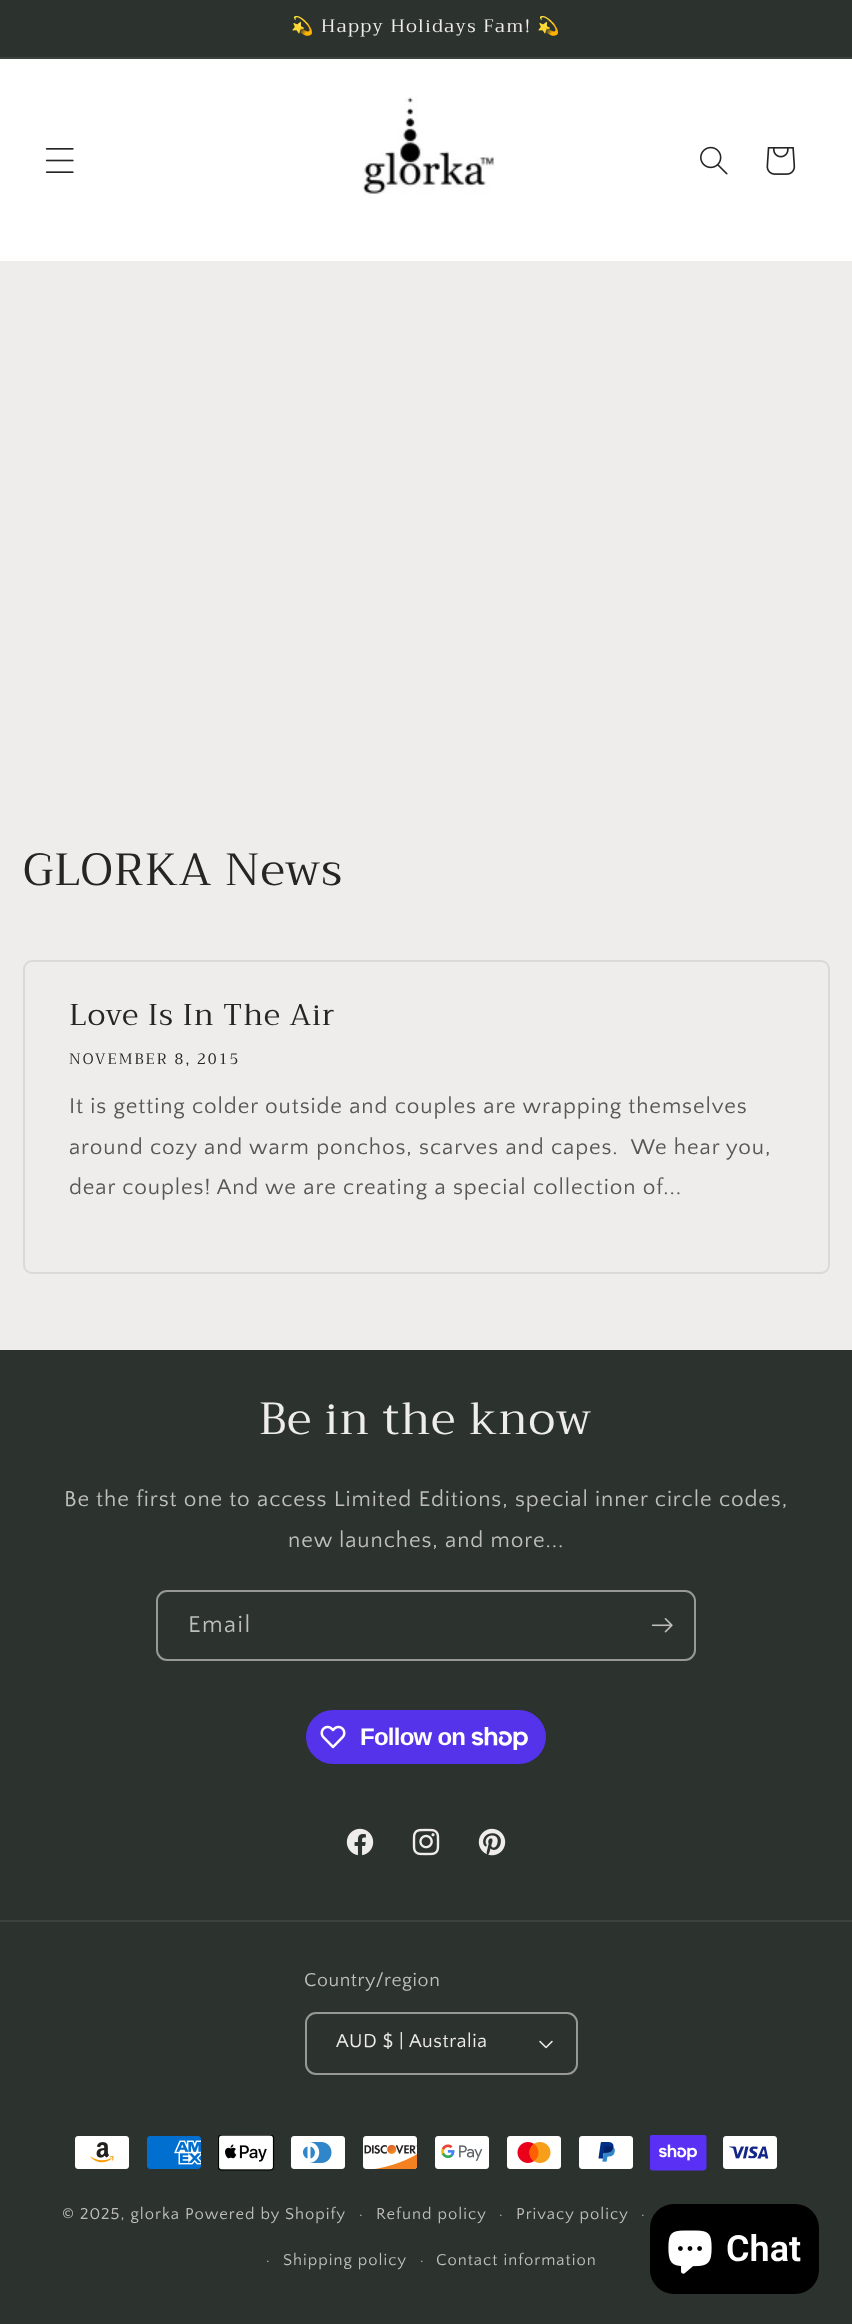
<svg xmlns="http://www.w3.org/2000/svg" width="852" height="2324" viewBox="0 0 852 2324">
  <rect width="100%" height="100%" fill="#efecec"/>
  <rect x="0" y="0" width="852" height="57" fill="#2c332f"/>
  <rect x="0" y="57" width="852" height="2" fill="#3c423e"/>
  <text x="291" y="32" font-family="Noto Color Emoji" font-size="18" letter-spacing="1.5" fill="#efecec">💫</text>
  <text x="321" y="32" font-family="Trirong" font-size="18" letter-spacing="1.5" fill="#efecec">Happy Holidays Fam!</text>
  <text x="537" y="32" font-family="Noto Color Emoji" font-size="18" letter-spacing="1.5" fill="#efecec">💫</text>
  <rect x="0" y="59" width="852" height="202" fill="#ffffff"/>
  <image x="45" y="148" width="29" height="25" href="img1.png"/>
  <image x="362" y="97" width="133" height="97" href="img2.png"/>
  <image x="700" y="146" width="28" height="29" href="img3.png"/>
  <image x="766" y="147" width="30" height="28" href="img4.png"/>
  <text x="23" y="885" font-family="Trirong" font-size="45" letter-spacing="0.9" fill="#252525">GLORKA News</text>
  <rect x="24" y="961" width="805" height="312" rx="8" fill="none" stroke="#dbd8d8" stroke-width="2"/>
  <text x="69" y="1025" font-family="Trirong" font-size="30" letter-spacing="0.9" fill="#252525">Love Is In The Air</text>
  <text x="69" y="1064" font-family="Trirong" font-size="15" letter-spacing="2" fill="#252525">NOVEMBER 8, 2015</text>
  <text x="69" y="1113" font-family="Quattrocento Sans" font-size="22.5" letter-spacing="0.9" fill="#585757">It is getting colder outside and couples are wrapping themselves</text>
  <text x="69" y="1154" font-family="Quattrocento Sans" font-size="22.5" letter-spacing="0.9" fill="#585757" xml:space="preserve">around cozy and warm ponchos, scarves and capes.  We hear you,</text>
  <text x="69" y="1194" font-family="Quattrocento Sans" font-size="22.5" letter-spacing="0.9" fill="#585757">dear couples! And we are creating a special collection of...</text>
  <rect x="0" y="1350" width="852" height="974" fill="#2c332f"/>
  <text x="259" y="1434" font-family="Trirong" font-size="45" letter-spacing="0.9" fill="#efecec">Be in the know</text>
  <text x="64" y="1506" font-family="Quattrocento Sans" font-size="22.5" letter-spacing="0.9" fill="#bebebd">Be the first one to access Limited Editions, special inner circle codes,</text>
  <text x="288" y="1547" font-family="Quattrocento Sans" font-size="22.5" letter-spacing="0.9" fill="#bebebd">new launches, and more...</text>
  <rect x="157" y="1591" width="538" height="69" rx="10" fill="none" stroke="#979997" stroke-width="2"/>
  <text x="188" y="1632" font-family="Quattrocento Sans" font-size="24" letter-spacing="1.5" fill="#bebebd">Email</text>
  <image x="651" y="1618" width="22" height="15" href="img5.png"/>
  <rect x="306" y="1710" width="240" height="54" rx="27" fill="#5433eb"/>
  <image x="320" y="1725" width="26" height="24" href="img6.png"/>
  <text x="360" y="1745" font-family="Liberation Sans" font-size="24" font-weight="bold" letter-spacing="-0.75" fill="#ffffff">Follow on</text>
  <image x="471" y="1727" width="57" height="23" href="img7.png"/>
  <image x="346" y="1828" width="28" height="28" href="img8.png"/>
  <image x="412" y="1828" width="28" height="28" href="img9.png"/>
  <image x="478" y="1828" width="28" height="28" href="img10.png"/>
  <rect x="0" y="1920" width="852" height="2" fill="#3c423e"/>
  <text x="304" y="1986" font-family="Quattrocento Sans" font-size="19.5" letter-spacing="0.6" fill="#bebebd">Country/region</text>
  <image x="539" y="2040" width="14" height="9" href="img11.png"/>
  <rect x="306" y="2013" width="271" height="61" rx="10" fill="none" stroke="#979997" stroke-width="2"/>
  <text x="336" y="2047" font-family="Quattrocento Sans" font-size="19.5" letter-spacing="0.6" fill="#efecec">AUD $ | Australia</text>
  <image x="75" y="2136" width="54" height="33" href="img12.png"/>
  <image x="147" y="2136" width="54" height="33" href="img13.png"/>
  <image x="218" y="2135" width="57" height="36" href="img14.png"/>
  <image x="291" y="2136" width="54" height="33" href="img15.png"/>
  <image x="363" y="2136" width="55" height="33" href="img16.png"/>
  <image x="435" y="2136" width="54" height="33" href="img17.png"/>
  <image x="507" y="2136" width="54" height="33" href="img18.png"/>
  <image x="579" y="2136" width="54" height="33" href="img19.png"/>
  <image x="650" y="2135" width="57" height="36" href="img20.png"/>
  <image x="723" y="2136" width="54" height="33" href="img21.png"/>
  <text x="62" y="2219" font-family="Quattrocento Sans" font-size="16.5" letter-spacing="1" fill="#bebebd">© 2025, glorka</text>
  <text x="185" y="2219" font-family="Quattrocento Sans" font-size="16.5" letter-spacing="1" fill="#bebebd">Powered by Shopify</text>
  <text x="359" y="2219" font-family="Quattrocento Sans" font-size="15" letter-spacing="1" fill="#bebebd">·</text>
  <text x="376" y="2219" font-family="Quattrocento Sans" font-size="16.5" letter-spacing="1" fill="#bebebd">Refund policy</text>
  <text x="499" y="2219" font-family="Quattrocento Sans" font-size="15" letter-spacing="1" fill="#bebebd">·</text>
  <text x="516" y="2219" font-family="Quattrocento Sans" font-size="16.5" letter-spacing="1" fill="#bebebd">Privacy policy</text>
  <text x="641" y="2219" font-family="Quattrocento Sans" font-size="15" letter-spacing="1" fill="#bebebd">·</text>
  <text x="266" y="2265" font-family="Quattrocento Sans" font-size="15" letter-spacing="1" fill="#bebebd">·</text>
  <text x="283" y="2265" font-family="Quattrocento Sans" font-size="16.5" letter-spacing="1" fill="#bebebd">Shipping policy</text>
  <text x="420" y="2265" font-family="Quattrocento Sans" font-size="15" letter-spacing="1" fill="#bebebd">·</text>
  <text x="436" y="2265" font-family="Quattrocento Sans" font-size="16.5" letter-spacing="1" fill="#bebebd">Contact information</text>
  <rect x="650" y="2204" width="169" height="90" rx="24" fill="#000000"/>
  <image x="668" y="2230" width="44" height="44" href="img22.png"/>
  <text x="726" y="2261" font-family="Roboto" font-size="36" font-weight="600" fill="#ffffff">Chat</text>
</svg>
